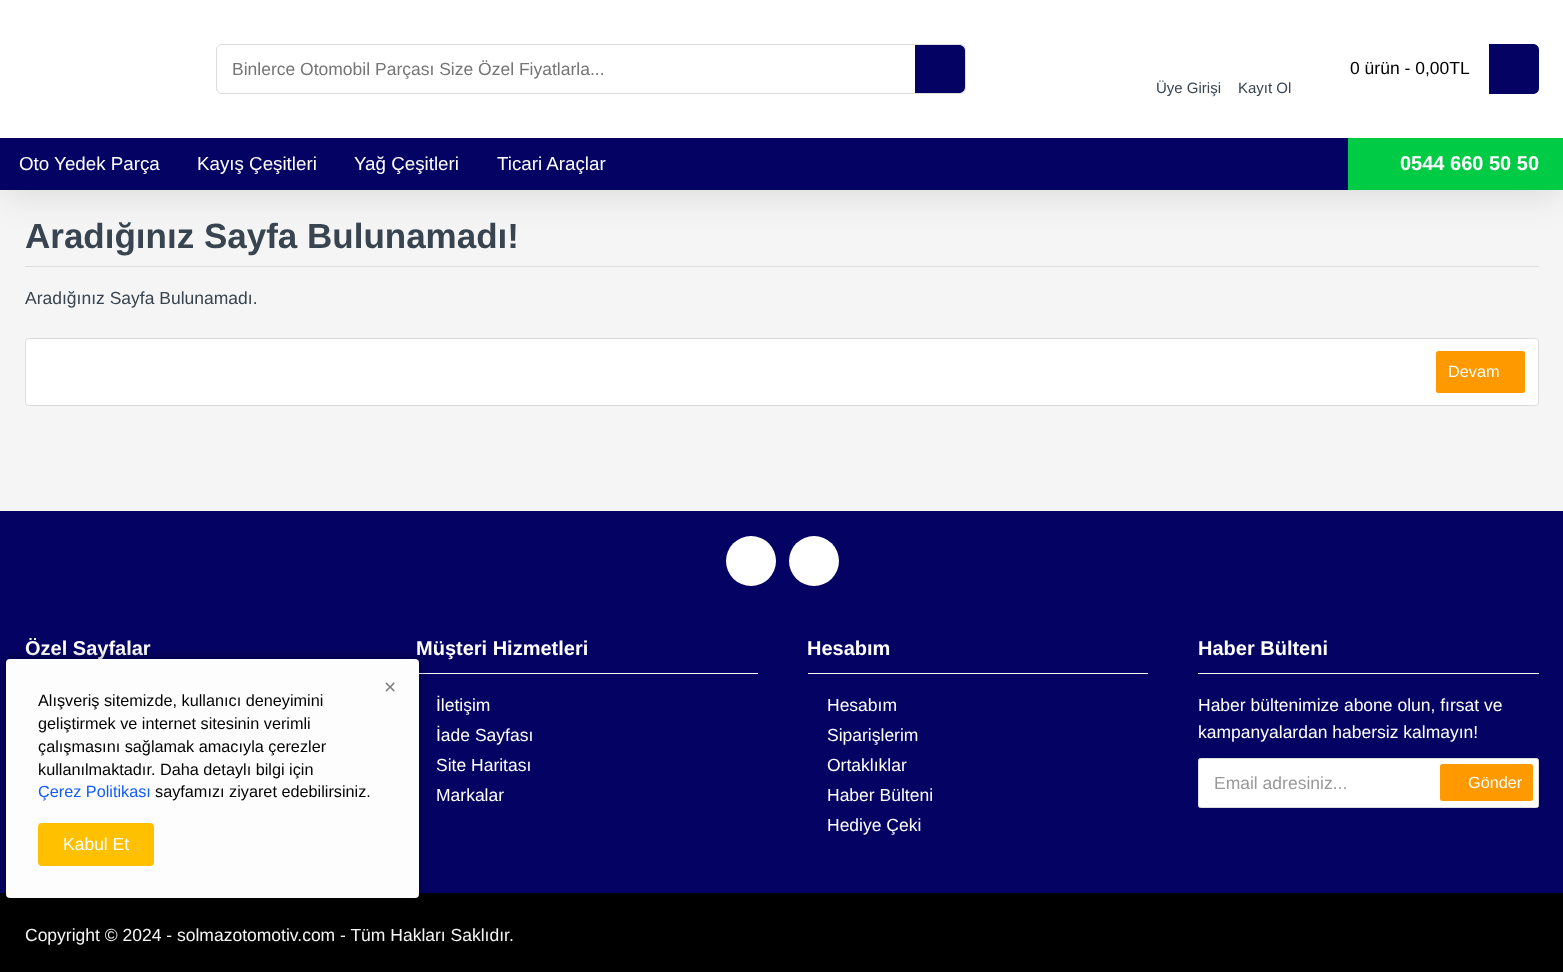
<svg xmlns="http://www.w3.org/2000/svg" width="1563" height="972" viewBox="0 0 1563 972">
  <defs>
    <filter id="blur1" x="-50%" y="-200%" width="200%" height="500%"><feGaussianBlur stdDeviation="19"/></filter>
    <filter id="blur2" x="-50%" y="-200%" width="200%" height="500%"><feGaussianBlur stdDeviation="5"/></filter>
  </defs>
  <rect width="100%" height="100%" fill="#f5f5f5"/>
  <rect x="6" y="13" width="1552" height="177" fill="#000000" fill-opacity="0.15" filter="url(#blur1)"/>
  <rect x="0" y="0" width="1563" height="138" fill="#ffffff"/>
  <rect x="216.5" y="44.5" width="749" height="49" rx="5.5" fill="none" stroke="#dddddd"/>
  <text x="232" y="75" font-family="Liberation Sans" font-size="17.5" fill="#757575">Binlerce Otomobil Parçası Size Özel Fiyatlarla...</text>
  <path d="M915 45H959C962.5 45 965 47.5 965 51V87C965 90.5 962.5 93 959 93H915Z" fill="#040263"/>
  <text x="1350" y="74" font-family="Liberation Sans" font-size="17.5" fill="#000000">0 ürün - 0,00TL</text>
  <path d="M1489 44H1533C1536.5 44 1539 46.5 1539 50V88C1539 91.5 1536.5 94 1533 94H1489Z" fill="#040263"/>
  <text x="1156" y="93" font-family="Liberation Sans" font-size="15" fill="#38444f">Üye Girişi</text>
  <text x="1238" y="93" font-family="Liberation Sans" font-size="15" fill="#38444f">Kayıt Ol</text>
  <rect x="0" y="138" width="1348" height="52" fill="#040263"/>
  <text x="19" y="170" font-family="Liberation Sans" font-size="18.75" fill="#ffffff">Oto Yedek Parça</text>
  <text x="197" y="170" font-family="Liberation Sans" font-size="18.75" fill="#ffffff">Kayış Çeşitleri</text>
  <text x="354" y="170" font-family="Liberation Sans" font-size="18.75" fill="#ffffff">Yağ Çeşitleri</text>
  <text x="497" y="170" font-family="Liberation Sans" font-size="18.75" fill="#ffffff">Ticari Araçlar</text>
  <rect x="1348" y="138" width="215" height="52" fill="#00cb44"/>
  <text x="1400" y="170" font-family="Liberation Sans" font-size="20" font-weight="bold" fill="#ffffff">0544 660 50 50</text>
  <rect x="25" y="266" width="1514" height="1" fill="#dddddd"/>
  <text x="25" y="248" font-family="Liberation Sans" font-size="35" font-weight="bold" fill="#38444f">Aradığınız Sayfa Bulunamadı!</text>
  <text x="25" y="304" font-family="Liberation Sans" font-size="17.5" fill="#38444f">Aradığınız Sayfa Bulunamadı.</text>
  <rect x="25.5" y="338.5" width="1513" height="67" rx="3.5" fill="#ffffff" stroke="#dddddd"/>
  <rect x="1436" y="351" width="89" height="42" rx="2.5" fill="#ff9900"/>
  <text x="1448" y="377" font-family="Liberation Sans" font-size="16.25" fill="#ffffff">Devam</text>
  <rect x="0" y="511" width="1563" height="382" fill="#040263"/>
  <circle cx="751" cy="561" r="25" fill="#ffffff"/>
  <circle cx="814" cy="561" r="25" fill="#ffffff"/>
  <text x="25" y="655" font-family="Liberation Sans" font-size="20" font-weight="bold" fill="#ffffff">Özel Sayfalar</text>
  <rect x="416" y="673" width="342" height="1" fill="#fafafa"/>
  <text x="416" y="655" font-family="Liberation Sans" font-size="20" font-weight="bold" fill="#ffffff">Müşteri Hizmetleri</text>
  <text x="436" y="711" font-family="Liberation Sans" font-size="17.5" fill="#ffffff">İletişim</text>
  <text x="436" y="741" font-family="Liberation Sans" font-size="17.5" fill="#ffffff">İade Sayfası</text>
  <text x="436" y="771" font-family="Liberation Sans" font-size="17.5" fill="#ffffff">Site Haritası</text>
  <text x="436" y="801" font-family="Liberation Sans" font-size="17.5" fill="#ffffff">Markalar</text>
  <rect x="808" y="673" width="340" height="1" fill="#fafafa"/>
  <text x="807" y="655" font-family="Liberation Sans" font-size="20" font-weight="bold" fill="#ffffff">Hesabım</text>
  <text x="827" y="711" font-family="Liberation Sans" font-size="17.5" fill="#ffffff">Hesabım</text>
  <text x="827" y="741" font-family="Liberation Sans" font-size="17.5" fill="#ffffff">Siparişlerim</text>
  <text x="827" y="771" font-family="Liberation Sans" font-size="17.5" fill="#ffffff">Ortaklıklar</text>
  <text x="827" y="801" font-family="Liberation Sans" font-size="17.5" fill="#ffffff">Haber Bülteni</text>
  <text x="827" y="831" font-family="Liberation Sans" font-size="17.5" fill="#ffffff">Hediye Çeki</text>
  <rect x="1198" y="673" width="341" height="1" fill="#fafafa"/>
  <text x="1198" y="655" font-family="Liberation Sans" font-size="20" font-weight="bold" fill="#ffffff">Haber Bülteni</text>
  <text x="1198" y="711" font-family="Liberation Sans" font-size="17.5" fill="#ffffff">Haber bültenimize abone olun, fırsat ve</text>
  <text x="1198" y="738" font-family="Liberation Sans" font-size="17.5" fill="#ffffff">kampanyalardan habersiz kalmayın!</text>
  <rect x="1198.5" y="758.5" width="340" height="49" rx="2" fill="#ffffff" stroke="#dddddd"/>
  <text x="1214" y="789" font-family="Liberation Sans" font-size="17.5" fill="#999999">Email adresiniz...</text>
  <rect x="1440" y="764" width="93" height="37" rx="2.5" fill="#ff9900"/>
  <text x="1468" y="788" font-family="Liberation Sans" font-size="16.25" fill="#ffffff">Gönder</text>
  <rect x="0" y="893" width="1563" height="79" fill="#000000"/>
  <text x="25" y="941" font-family="Liberation Sans" font-size="17.5" fill="#f5f5f5">Copyright © 2024 - solmazotomotiv.com - Tüm Hakları Saklıdır.</text>
  <rect x="4" y="656" width="417" height="244" rx="6" fill="#000000" fill-opacity="0.28" filter="url(#blur2)"/>
  <rect x="6" y="659" width="413" height="239" rx="4" fill="#fdfdfd"/>
  <text x="384" y="694" font-family="Liberation Sans" font-size="21" fill="#7f7f7f">×</text>
  <text x="38" y="706" font-family="Liberation Sans" font-size="16.25" fill="#000000">Alışveriş sitemizde, kullanıcı deneyimini</text>
  <text x="38" y="729" font-family="Liberation Sans" font-size="16.25" fill="#000000">geliştirmek ve internet sitesinin verimli</text>
  <text x="38" y="752" font-family="Liberation Sans" font-size="16.25" fill="#000000">çalışmasını sağlamak amacıyla çerezler</text>
  <text x="38" y="775" font-family="Liberation Sans" font-size="16.25" fill="#000000">kullanılmaktadır. Daha detaylı bilgi için</text>
  <text x="38" y="797" font-family="Liberation Sans" font-size="16.25" fill="#115cfa">Çerez Politikası</text>
  <text x="155" y="797" font-family="Liberation Sans" font-size="16.25" fill="#000000">sayfamızı ziyaret edebilirsiniz.</text>
  <rect x="38" y="823" width="116" height="43" rx="4" fill="#ffc000"/>
  <text x="63" y="850" font-family="Liberation Sans" font-size="17.5" fill="#ffffff">Kabul Et</text>
</svg>
